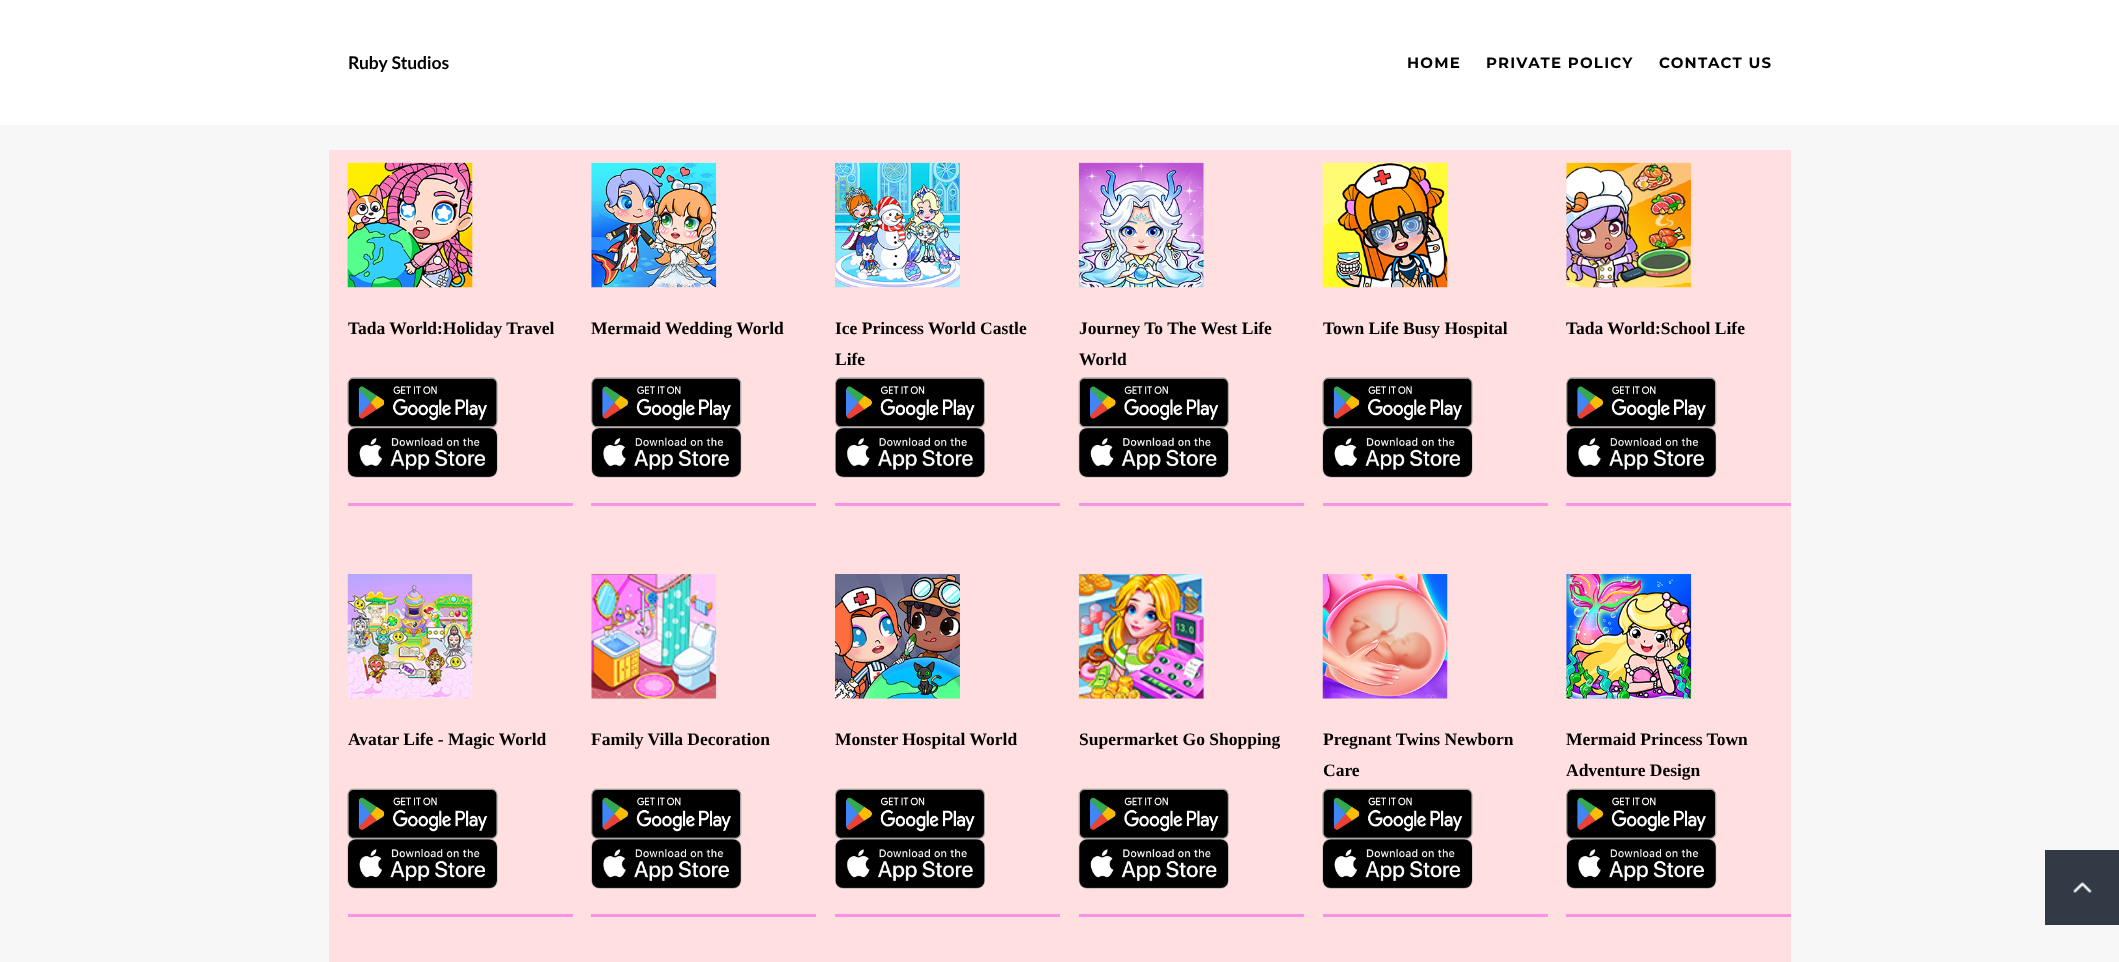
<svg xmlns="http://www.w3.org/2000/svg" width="2119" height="962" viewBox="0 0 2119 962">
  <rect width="100%" height="100%" fill="#f7f7f7"/>
  <rect x="0" y="0" width="2119" height="125" fill="#ffffff"/>
  <text x="348" y="69" font-family="Lato" font-size="17.5" font-weight="bold" fill="#000000">Ruby Studios</text>
  <text x="1407" y="68" font-family="Montserrat" font-size="15" font-weight="bold" letter-spacing="1.25" fill="#000000">HOME</text>
  <text x="1486" y="68" font-family="Montserrat" font-size="15" font-weight="bold" letter-spacing="1.25" fill="#000000">PRIVATE POLICY</text>
  <text x="1659" y="68" font-family="Montserrat" font-size="15" font-weight="bold" letter-spacing="1.25" fill="#000000">CONTACT US</text>
  <rect x="329" y="150" width="1462" height="812" fill="#ffdfdf"/>
  <image x="347" y="162" width="126" height="126" href="img1.png"/>
  <text x="348" y="334" font-family="Liberation Serif" font-size="17.5" font-weight="bold" fill="#000000">Tada World:Holiday Travel</text>
  <image x="347" y="377" width="151" height="51" href="img2.png"/>
  <image x="347" y="427" width="151" height="51" href="img3.png"/>
  <rect x="348" y="503" width="225" height="3" fill="#fc92e5"/>
  <image x="591" y="162" width="126" height="126" href="img4.png"/>
  <text x="591" y="334" font-family="Liberation Serif" font-size="17.5" font-weight="bold" fill="#000000">Mermaid Wedding World</text>
  <image x="591" y="377" width="151" height="51" href="img5.png"/>
  <image x="591" y="427" width="151" height="51" href="img6.png"/>
  <rect x="591" y="503" width="225" height="3" fill="#fc92e5"/>
  <image x="835" y="162" width="125" height="126" href="img7.png"/>
  <text x="835" y="334" font-family="Liberation Serif" font-size="17.5" font-weight="bold" fill="#000000">Ice Princess World Castle</text>
  <text x="835" y="365" font-family="Liberation Serif" font-size="17.5" font-weight="bold" fill="#000000">Life</text>
  <image x="835" y="377" width="150" height="51" href="img8.png"/>
  <image x="835" y="427" width="150" height="51" href="img9.png"/>
  <rect x="835" y="503" width="225" height="3" fill="#fc92e5"/>
  <image x="1078" y="162" width="126" height="126" href="img10.png"/>
  <text x="1079" y="334" font-family="Liberation Serif" font-size="17.5" font-weight="bold" fill="#000000">Journey To The West Life</text>
  <text x="1079" y="365" font-family="Liberation Serif" font-size="17.5" font-weight="bold" fill="#000000">World</text>
  <image x="1078" y="377" width="151" height="51" href="img11.png"/>
  <image x="1078" y="427" width="151" height="51" href="img12.png"/>
  <rect x="1079" y="503" width="225" height="3" fill="#fc92e5"/>
  <image x="1322" y="162" width="126" height="126" href="img13.png"/>
  <text x="1323" y="334" font-family="Liberation Serif" font-size="17.5" font-weight="bold" fill="#000000">Town Life Busy Hospital</text>
  <image x="1322" y="377" width="151" height="51" href="img2.png"/>
  <image x="1322" y="427" width="151" height="51" href="img3.png"/>
  <rect x="1323" y="503" width="225" height="3" fill="#fc92e5"/>
  <image x="1566" y="162" width="126" height="126" href="img14.png"/>
  <text x="1566" y="334" font-family="Liberation Serif" font-size="17.5" font-weight="bold" fill="#000000">Tada World:School Life</text>
  <image x="1566" y="377" width="151" height="51" href="img15.png"/>
  <image x="1566" y="427" width="151" height="51" href="img16.png"/>
  <rect x="1566" y="503" width="225" height="3" fill="#fc92e5"/>
  <image x="347" y="574" width="126" height="125" href="img17.png"/>
  <text x="348" y="745" font-family="Liberation Serif" font-size="17.5" font-weight="bold" fill="#000000">Avatar Life - Magic World</text>
  <image x="347" y="788" width="151" height="51" href="img18.png"/>
  <image x="347" y="838" width="151" height="51" href="img19.png"/>
  <rect x="348" y="914" width="225" height="3" fill="#fc92e5"/>
  <image x="591" y="574" width="126" height="125" href="img20.png"/>
  <text x="591" y="745" font-family="Liberation Serif" font-size="17.5" font-weight="bold" fill="#000000">Family Villa Decoration</text>
  <image x="591" y="788" width="151" height="51" href="img21.png"/>
  <image x="591" y="838" width="151" height="51" href="img22.png"/>
  <rect x="591" y="914" width="225" height="3" fill="#fc92e5"/>
  <image x="835" y="574" width="125" height="125" href="img23.png"/>
  <text x="835" y="745" font-family="Liberation Serif" font-size="17.5" font-weight="bold" fill="#000000">Monster Hospital World</text>
  <image x="835" y="788" width="150" height="51" href="img24.png"/>
  <image x="835" y="838" width="150" height="51" href="img25.png"/>
  <rect x="835" y="914" width="225" height="3" fill="#fc92e5"/>
  <image x="1078" y="574" width="126" height="125" href="img26.png"/>
  <text x="1079" y="745" font-family="Liberation Serif" font-size="17.5" font-weight="bold" fill="#000000">Supermarket Go Shopping</text>
  <image x="1078" y="788" width="151" height="51" href="img27.png"/>
  <image x="1078" y="838" width="151" height="51" href="img28.png"/>
  <rect x="1079" y="914" width="225" height="3" fill="#fc92e5"/>
  <image x="1322" y="574" width="126" height="125" href="img29.png"/>
  <text x="1323" y="745" font-family="Liberation Serif" font-size="17.5" font-weight="bold" fill="#000000">Pregnant Twins Newborn</text>
  <text x="1323" y="776" font-family="Liberation Serif" font-size="17.5" font-weight="bold" fill="#000000">Care</text>
  <image x="1322" y="788" width="151" height="51" href="img18.png"/>
  <image x="1322" y="838" width="151" height="51" href="img19.png"/>
  <rect x="1323" y="914" width="225" height="3" fill="#fc92e5"/>
  <image x="1566" y="574" width="126" height="125" href="img30.png"/>
  <text x="1566" y="745" font-family="Liberation Serif" font-size="17.5" font-weight="bold" fill="#000000">Mermaid Princess Town</text>
  <text x="1566" y="776" font-family="Liberation Serif" font-size="17.5" font-weight="bold" fill="#000000">Adventure Design</text>
  <image x="1566" y="788" width="151" height="51" href="img31.png"/>
  <image x="1566" y="838" width="151" height="51" href="img32.png"/>
  <rect x="1566" y="914" width="225" height="3" fill="#fc92e5"/>
  <rect x="2045" y="850" width="74" height="75" fill="#323a45"/>
  <image x="2073" y="882" width="19" height="11" href="img33.png"/>
</svg>
